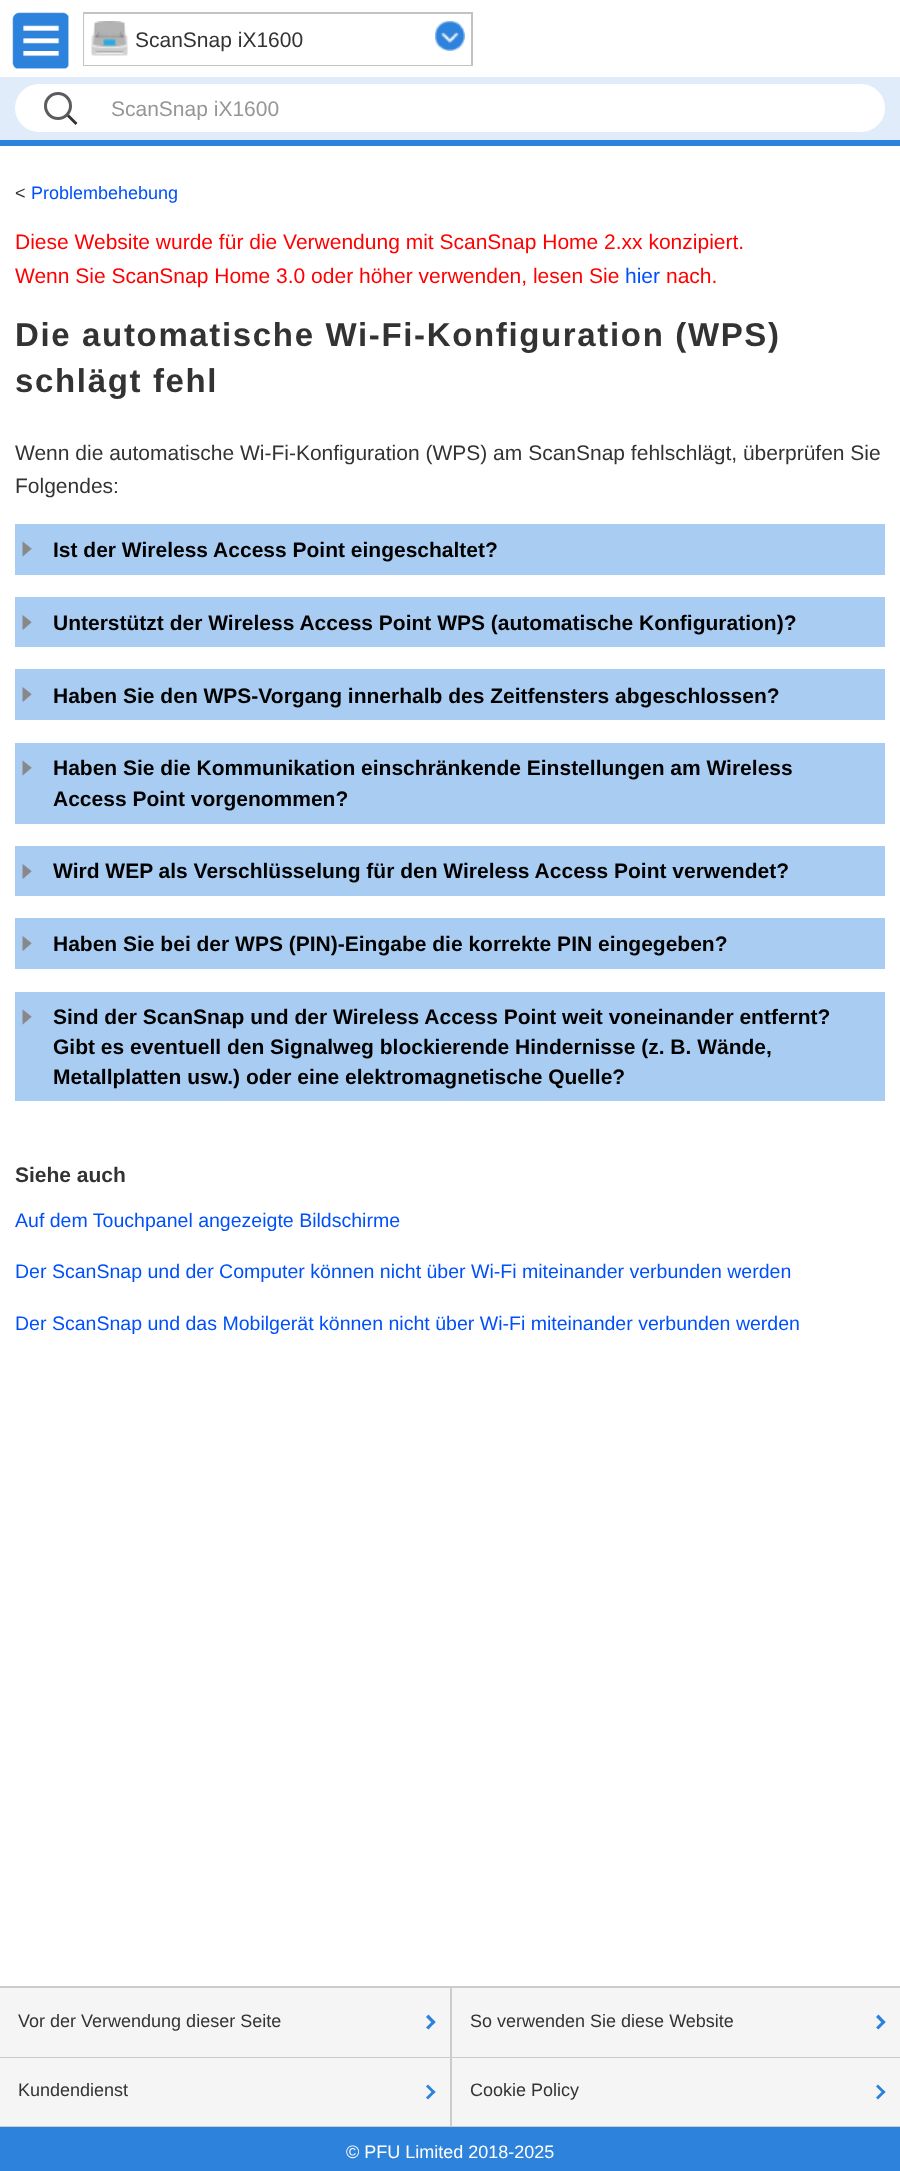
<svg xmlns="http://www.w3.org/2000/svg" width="900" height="2171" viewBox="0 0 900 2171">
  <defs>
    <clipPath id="clip1"><rect x="111" y="96" width="744" height="24"/></clipPath>
  </defs>
  <rect width="100%" height="100%" fill="#ffffff"/>
  <rect x="84" y="13" width="388" height="52" fill="none" stroke="#c3c3c3" stroke-width="2"/>
  <rect x="84" y="14" width="387" height="51" fill="#ffffff"/>
  <image x="91" y="21" width="37" height="35" href="img1.png"/>
  <text x="135" y="47" font-family="Liberation Sans" font-size="21" fill="#333333">ScanSnap iX1600</text>
  <image x="435" y="21" width="30" height="30" href="img2.png"/>
  <rect x="0" y="140" width="900" height="6" fill="#2d82dc"/>
  <image x="12" y="12" width="57" height="57" href="img3.png"/>
  <image x="12" y="12" width="57" height="57" href="img4.png"/>
  <rect x="0" y="77" width="900" height="63" fill="#e0ecf9"/>
  <rect x="15" y="84" width="870" height="48" rx="24" fill="#ffffff"/>
  <circle cx="58" cy="106" r="12.5" fill="none" stroke="#5c5c5c" stroke-width="3"/>
  <path d="M69 114.5L77.5 123L75.5 125L67 116.5Z" fill="#333333"/>
  <g clip-path="url(#clip1)">
    <text x="111" y="116" font-family="Liberation Sans" font-size="21" fill="#969696">ScanSnap iX1600</text>
  </g>
  <text x="15" y="199" font-family="Liberation Sans" font-size="18" fill="#333333">&lt;</text>
  <text x="31" y="199" font-family="Liberation Sans" font-size="18" fill="#0050fa">Problembehebung</text>
  <text x="15" y="249" font-family="Liberation Sans" font-size="21" fill="#ff0000">Diese Website wurde für die Verwendung mit ScanSnap Home 2.xx konzipiert.</text>
  <text x="15" y="283" font-family="Liberation Sans" font-size="21" fill="#ff0000">Wenn Sie ScanSnap Home 3.0 oder höher verwenden, lesen Sie</text>
  <text x="625" y="283" font-family="Liberation Sans" font-size="21" fill="#0050fa">hier</text>
  <text x="666" y="283" font-family="Liberation Sans" font-size="21" fill="#ff0000">nach.</text>
  <text x="15" y="346" font-family="Liberation Sans" font-size="33" font-weight="bold" letter-spacing="1.65" fill="#333333">Die automatische Wi-Fi-Konfiguration (WPS)</text>
  <text x="15" y="392" font-family="Liberation Sans" font-size="33" font-weight="bold" letter-spacing="1.65" fill="#333333">schlägt fehl</text>
  <text x="15" y="460" font-family="Liberation Sans" font-size="21" fill="#333333">Wenn die automatische Wi-Fi-Konfiguration (WPS) am ScanSnap fehlschlägt, überprüfen Sie</text>
  <text x="15" y="493" font-family="Liberation Sans" font-size="21" fill="#333333">Folgendes:</text>
  <rect x="15" y="524" width="870" height="51" fill="#a9cdf2"/>
  <image x="22" y="541" width="10" height="16" href="img5.png"/>
  <text x="53" y="557" font-family="Liberation Sans" font-size="21" font-weight="bold" fill="#000000">Ist der Wireless Access Point eingeschaltet?</text>
  <rect x="15" y="597" width="870" height="50" fill="#a9cdf2"/>
  <image x="22" y="615" width="10" height="15" href="img6.png"/>
  <text x="53" y="630" font-family="Liberation Sans" font-size="21" font-weight="bold" fill="#000000">Unterstützt der Wireless Access Point WPS (automatische Konfiguration)?</text>
  <rect x="15" y="669" width="870" height="51" fill="#a9cdf2"/>
  <image x="22" y="687" width="10" height="15" href="img6.png"/>
  <text x="53" y="703" font-family="Liberation Sans" font-size="21" font-weight="bold" fill="#000000">Haben Sie den WPS-Vorgang innerhalb des Zeitfensters abgeschlossen?</text>
  <rect x="15" y="743" width="870" height="81" fill="#a9cdf2"/>
  <image x="22" y="760" width="10" height="16" href="img5.png"/>
  <text x="53" y="775" font-family="Liberation Sans" font-size="21" font-weight="bold" fill="#000000">Haben Sie die Kommunikation einschränkende Einstellungen am Wireless</text>
  <text x="53" y="806" font-family="Liberation Sans" font-size="21" font-weight="bold" fill="#000000">Access Point vorgenommen?</text>
  <rect x="15" y="846" width="870" height="50" fill="#a9cdf2"/>
  <image x="22" y="864" width="10" height="15" href="img6.png"/>
  <text x="53" y="878" font-family="Liberation Sans" font-size="21" font-weight="bold" fill="#000000">Wird WEP als Verschlüsselung für den Wireless Access Point verwendet?</text>
  <rect x="15" y="918" width="870" height="51" fill="#a9cdf2"/>
  <image x="22" y="936" width="10" height="15" href="img6.png"/>
  <text x="53" y="951" font-family="Liberation Sans" font-size="21" font-weight="bold" fill="#000000">Haben Sie bei der WPS (PIN)-Eingabe die korrekte PIN eingegeben?</text>
  <rect x="15" y="992" width="870" height="109" fill="#a9cdf2"/>
  <image x="22" y="1009" width="10" height="16" href="img5.png"/>
  <text x="53" y="1024" font-family="Liberation Sans" font-size="21" font-weight="bold" fill="#000000">Sind der ScanSnap und der Wireless Access Point weit voneinander entfernt?</text>
  <text x="53" y="1054" font-family="Liberation Sans" font-size="21" font-weight="bold" fill="#000000">Gibt es eventuell den Signalweg blockierende Hindernisse (z. B. Wände,</text>
  <text x="53" y="1084" font-family="Liberation Sans" font-size="21" font-weight="bold" fill="#000000">Metallplatten usw.) oder eine elektromagnetische Quelle?</text>
  <text x="15" y="1182" font-family="Liberation Sans" font-size="21" font-weight="bold" fill="#333333">Siehe auch</text>
  <text x="15" y="1227" font-family="Liberation Sans" font-size="19.55" fill="#0050fa">Auf dem Touchpanel angezeigte Bildschirme</text>
  <text x="15" y="1278" font-family="Liberation Sans" font-size="19.55" fill="#0050fa">Der ScanSnap und der Computer können nicht über Wi-Fi miteinander verbunden werden</text>
  <text x="15" y="1330" font-family="Liberation Sans" font-size="19.55" fill="#0050fa">Der ScanSnap und das Mobilgerät können nicht über Wi-Fi miteinander verbunden werden</text>
  <rect x="0" y="1986" width="900" height="2" fill="#cccccc"/>
  <rect x="0" y="1988" width="450" height="69" fill="#f5f5f5"/>
  <rect x="0" y="2057" width="900" height="1" fill="#cccccc"/>
  <text x="18" y="2027" font-family="Liberation Sans" font-size="18" fill="#333333">Vor der Verwendung dieser Seite</text>
  <path d="M428.5 2014.5L435.5 2022L433.5 2024.5L426 2017Z" fill="#2d82dc"/>
  <path d="M433.5 2020L435.5 2022L428.5 2029.5L426 2027.5Z" fill="#2d82dc"/>
  <rect x="452" y="1988" width="448" height="69" fill="#f5f5f5"/>
  <rect x="450" y="1988" width="2" height="70" fill="#cccccc"/>
  <text x="470" y="2027" font-family="Liberation Sans" font-size="18" fill="#333333">So verwenden Sie diese Website</text>
  <path d="M878.5 2014.5L885.5 2022L883.5 2024.5L876 2017Z" fill="#2d82dc"/>
  <path d="M883.5 2020L885.5 2022L878.5 2029.5L876 2027.5Z" fill="#2d82dc"/>
  <rect x="0" y="2058" width="450" height="68" fill="#f5f5f5"/>
  <rect x="0" y="2126" width="900" height="1" fill="#cccccc"/>
  <text x="18" y="2096" font-family="Liberation Sans" font-size="18" fill="#333333">Kundendienst</text>
  <path d="M428 2084.5L435.5 2092L433.5 2094L426 2086.5Z" fill="#2d82dc"/>
  <path d="M433.5 2090L435.5 2092L428 2099.5L426 2097.5Z" fill="#2d82dc"/>
  <rect x="452" y="2058" width="448" height="68" fill="#f5f5f5"/>
  <rect x="450" y="2058" width="2" height="69" fill="#cccccc"/>
  <text x="470" y="2096" font-family="Liberation Sans" font-size="18" fill="#333333">Cookie Policy</text>
  <path d="M878 2084.5L885.5 2092L883.5 2094L876 2086.5Z" fill="#2d82dc"/>
  <path d="M883.5 2090L885.5 2092L878 2099.5L876 2097.5Z" fill="#2d82dc"/>
  <rect x="0" y="2127" width="900" height="44" fill="#2d82dc"/>
  <text x="346" y="2158" font-family="Liberation Sans" font-size="18" fill="#ffffff">© PFU Limited 2018-2025</text>
</svg>
